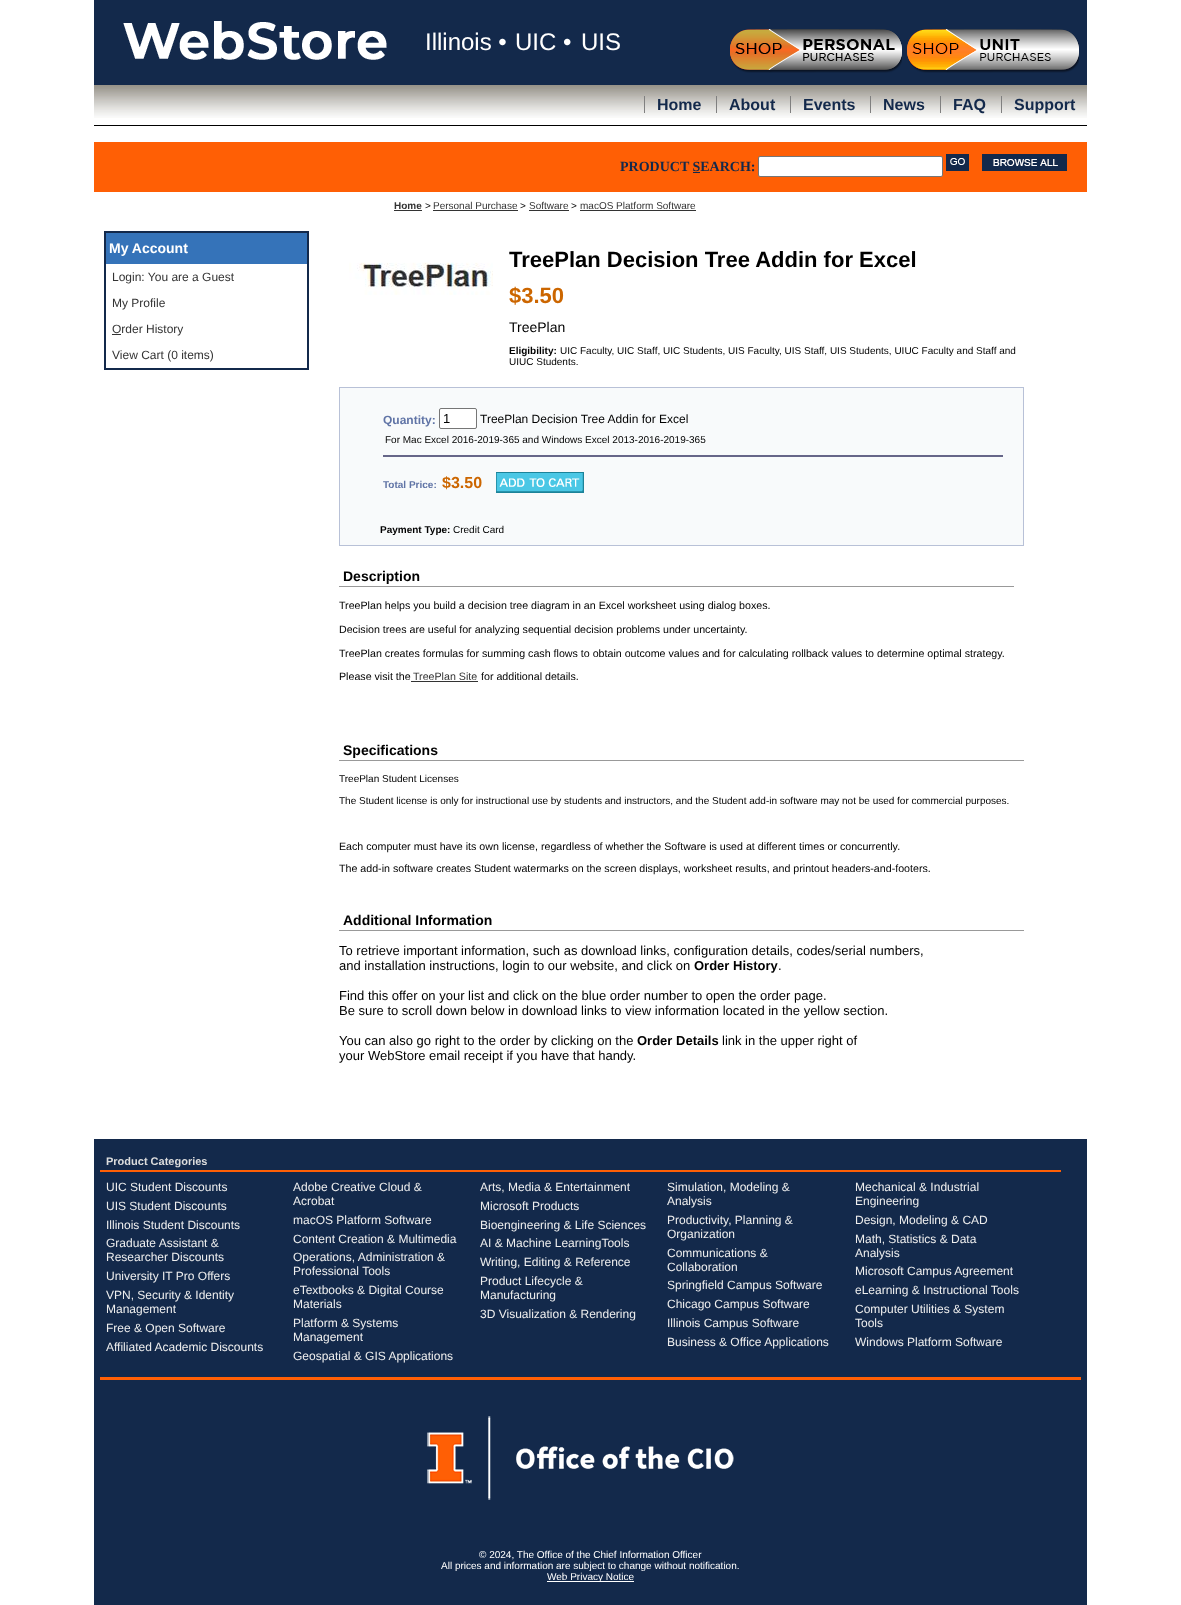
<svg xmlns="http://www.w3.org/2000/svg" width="1181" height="1605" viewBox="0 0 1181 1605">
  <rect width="100%" height="100%" fill="#ffffff"/>
  <rect x="94" y="125" width="993" height="1" fill="#000000"/>
  <rect x="94" y="0" width="993" height="85" fill="#13294b"/>
  <image x="123" y="21" width="264" height="39" href="img1.png"/>
  <text x="425" y="50" font-family="Liberation Sans" font-size="24" fill="#ffffff">Illinois •</text>
  <text x="515" y="50" font-family="Liberation Sans" font-size="24" fill="#ffffff">UIC •</text>
  <text x="581" y="50" font-family="Liberation Sans" font-size="24" fill="#ffffff">UIS</text>
  <image x="730" y="29" width="172" height="44" href="img2.png"/>
  <image x="907" y="29" width="172" height="44" href="img3.png"/>
  <image x="94" y="85" width="993" height="33" href="img4.png"/>
  <text x="657" y="110" font-family="Liberation Sans" font-size="16" font-weight="bold" fill="#13294b">Home</text>
  <rect x="644" y="96" width="1" height="17" fill="#808080"/>
  <text x="729" y="110" font-family="Liberation Sans" font-size="16" font-weight="bold" fill="#13294b">About</text>
  <rect x="716" y="96" width="1" height="17" fill="#808080"/>
  <text x="803" y="110" font-family="Liberation Sans" font-size="16" font-weight="bold" fill="#13294b">Events</text>
  <rect x="790" y="96" width="1" height="17" fill="#808080"/>
  <text x="883" y="110" font-family="Liberation Sans" font-size="16" font-weight="bold" fill="#13294b">News</text>
  <rect x="870" y="96" width="1" height="17" fill="#808080"/>
  <text x="953" y="110" font-family="Liberation Sans" font-size="16" font-weight="bold" fill="#13294b">FAQ</text>
  <rect x="940" y="96" width="1" height="17" fill="#808080"/>
  <text x="1014" y="110" font-family="Liberation Sans" font-size="16" font-weight="bold" fill="#13294b">Support</text>
  <rect x="1001" y="96" width="1" height="17" fill="#808080"/>
  <rect x="94" y="142" width="993" height="50" fill="#ff5f05"/>
  <text x="620" y="171" font-family="Liberation Serif" font-size="14" font-weight="bold" fill="#13294b">PRODUCT SEARCH:</text>
  <rect x="693" y="172" width="7" height="1" fill="#13294b"/>
  <rect x="758.5" y="156.5" width="184" height="20" rx="1.5" fill="#ffffff" stroke="#767676"/>
  <image x="946" y="154" width="23" height="17" href="img5.png"/>
  <image x="982" y="154" width="85" height="17" href="img6.png"/>
  <text x="394" y="209" font-family="Liberation Sans" font-size="10" font-weight="bold" fill="#333333">Home</text>
  <rect x="394" y="210" width="28" height="1" fill="#333333"/>
  <text x="425" y="209" font-family="Liberation Sans" font-size="10" fill="#000000">&gt;</text>
  <text x="433" y="209" font-family="Liberation Sans" font-size="10" fill="#333333">Personal Purchase</text>
  <rect x="433" y="210" width="85" height="1" fill="#333333"/>
  <text x="520" y="209" font-family="Liberation Sans" font-size="10" fill="#000000">&gt;</text>
  <text x="529" y="209" font-family="Liberation Sans" font-size="10" fill="#333333">Software</text>
  <rect x="529" y="210" width="40" height="1" fill="#333333"/>
  <text x="571" y="209" font-family="Liberation Sans" font-size="10" fill="#000000">&gt;</text>
  <text x="580" y="209" font-family="Liberation Sans" font-size="10" fill="#333333">macOS Platform Software</text>
  <rect x="580" y="210" width="116" height="1" fill="#333333"/>
  <rect x="105" y="232" width="203" height="137" fill="none" stroke="#13294b" stroke-width="2"/>
  <rect x="106" y="233" width="201" height="31" fill="#3573b9"/>
  <text x="109" y="253" font-family="Liberation Sans" font-size="14" font-weight="bold" fill="#ffffff">My Account</text>
  <text x="112" y="281" font-family="Liberation Sans" font-size="12" fill="#333333">Login: You are a Guest</text>
  <text x="112" y="307" font-family="Liberation Sans" font-size="12" fill="#333333">My Profile</text>
  <rect x="112" y="334" width="9" height="1" fill="#333333"/>
  <text x="112" y="333" font-family="Liberation Sans" font-size="12" fill="#333333">Order History</text>
  <text x="112" y="359" font-family="Liberation Sans" font-size="12" fill="#333333">View Cart (0 items)</text>
  <image x="349" y="262" width="144" height="33" href="img7.png"/>
  <text x="509" y="267" font-family="Liberation Sans" font-size="22" font-weight="bold" fill="#000000">TreePlan Decision Tree Addin for Excel</text>
  <text x="509" y="303" font-family="Liberation Sans" font-size="22" font-weight="bold" fill="#cc6600">$3.50</text>
  <text x="509" y="332" font-family="Liberation Sans" font-size="14" fill="#000000">TreePlan</text>
  <text x="509" y="354" font-family="Liberation Sans" font-size="10" font-weight="bold" fill="#000000">Eligibility:</text>
  <text x="560" y="354" font-family="Liberation Sans" font-size="10" fill="#000000">UIC Faculty, UIC Staff, UIC Students, UIS Faculty, UIS Staff, UIS Students, UIUC Faculty and Staff and</text>
  <text x="509" y="365" font-family="Liberation Sans" font-size="10" fill="#000000">UIUC Students.</text>
  <rect x="339.5" y="387.5" width="684" height="158" fill="#f8fafb" stroke="#b8c1d7"/>
  <text x="383" y="424" font-family="Liberation Sans" font-size="12" font-weight="bold" fill="#6074a6">Quantity:</text>
  <rect x="439.5" y="408.5" width="37" height="20" rx="1.5" fill="#ffffff" stroke="#767676"/>
  <text x="443" y="423" font-family="Liberation Sans" font-size="13" fill="#000000">1</text>
  <text x="480" y="423" font-family="Liberation Sans" font-size="12" fill="#000000">TreePlan Decision Tree Addin for Excel</text>
  <text x="385" y="443" font-family="Liberation Sans" font-size="10" fill="#000000">For Mac Excel 2016-2019-365 and Windows Excel 2013-2016-2019-365</text>
  <rect x="383" y="455" width="620" height="2" fill="#666688"/>
  <text x="383" y="488" font-family="Liberation Sans" font-size="10" font-weight="bold" fill="#6074a6">Total Price:</text>
  <text x="442" y="488" font-family="Liberation Sans" font-size="16" font-weight="bold" fill="#cc6600">$3.50</text>
  <image x="496" y="472" width="88" height="21" href="img8.png"/>
  <text x="380" y="533" font-family="Liberation Sans" font-size="10" font-weight="bold" fill="#000000">Payment Type:</text>
  <text x="453" y="533" font-family="Liberation Sans" font-size="10" fill="#000000">Credit Card</text>
  <rect x="339" y="586" width="675" height="1" fill="#999999"/>
  <text x="343" y="581" font-family="Liberation Sans" font-size="14" font-weight="bold" fill="#000000">Description</text>
  <text x="339" y="609" font-family="Liberation Sans" font-size="10.67" fill="#000000">TreePlan helps you build a decision tree diagram in an Excel worksheet using dialog boxes.</text>
  <text x="339" y="633" font-family="Liberation Sans" font-size="10.67" fill="#000000">Decision trees are useful for analyzing sequential decision problems under uncertainty.</text>
  <text x="339" y="657" font-family="Liberation Sans" font-size="10.67" fill="#000000">TreePlan creates formulas for summing cash flows to obtain outcome values and for calculating rollback values to determine optimal strategy.</text>
  <text x="339" y="680" font-family="Liberation Sans" font-size="10.67" fill="#000000">Please visit the</text>
  <text x="413" y="680" font-family="Liberation Sans" font-size="10.67" fill="#333333">TreePlan Site</text>
  <rect x="411" y="681" width="67" height="1" fill="#333333"/>
  <text x="481" y="680" font-family="Liberation Sans" font-size="10.67" fill="#000000">for additional details.</text>
  <rect x="339" y="760" width="685" height="1" fill="#999999"/>
  <text x="343" y="755" font-family="Liberation Sans" font-size="14" font-weight="bold" fill="#000000">Specifications</text>
  <text x="339" y="782" font-family="Liberation Sans" font-size="10" fill="#000000">TreePlan Student Licenses</text>
  <text x="339" y="804" font-family="Liberation Sans" font-size="10" fill="#000000">The Student license is only for instructional use by students and instructors, and the Student add-in software may not be used for commercial purposes.</text>
  <text x="339" y="850" font-family="Liberation Sans" font-size="10.67" fill="#000000">Each computer must have its own license, regardless of whether the Software is used at different times or concurrently.</text>
  <text x="339" y="872" font-family="Liberation Sans" font-size="10.67" fill="#000000">The add-in software creates Student watermarks on the screen displays, worksheet results, and printout headers-and-footers.</text>
  <rect x="339" y="930" width="685" height="1" fill="#999999"/>
  <text x="343" y="925" font-family="Liberation Sans" font-size="14" font-weight="bold" fill="#000000">Additional Information</text>
  <text x="339" y="955" font-family="Liberation Sans" font-size="13" fill="#000000">To retrieve important information, such as download links, configuration details, codes/serial numbers,</text>
  <text x="339" y="970" font-family="Liberation Sans" font-size="13" fill="#000000">and installation instructions, login to our website, and click on</text>
  <text x="694" y="970" font-family="Liberation Sans" font-size="13" font-weight="bold" fill="#000000">Order History</text>
  <text x="778" y="970" font-family="Liberation Sans" font-size="13" fill="#000000">.</text>
  <text x="339" y="1000" font-family="Liberation Sans" font-size="13" fill="#000000">Find this offer on your list and click on the blue order number to open the order page.</text>
  <text x="339" y="1015" font-family="Liberation Sans" font-size="13" fill="#000000">Be sure to scroll down below in download links to view information located in the yellow section.</text>
  <text x="339" y="1045" font-family="Liberation Sans" font-size="13" fill="#000000">You can also go right to the order by clicking on the</text>
  <text x="637" y="1045" font-family="Liberation Sans" font-size="13" font-weight="bold" fill="#000000">Order Details</text>
  <text x="722" y="1045" font-family="Liberation Sans" font-size="13" fill="#000000">link in the upper right of</text>
  <text x="339" y="1060" font-family="Liberation Sans" font-size="13" fill="#000000">your WebStore email receipt if you have that handy.</text>
  <rect x="94" y="1139" width="993" height="466" fill="#13294b"/>
  <rect x="100" y="1170" width="961" height="2" fill="#ff5f05"/>
  <text x="106" y="1165" font-family="Liberation Sans" font-size="11" font-weight="bold" fill="#dddddd">Product Categories</text>
  <text x="106" y="1191" font-family="Liberation Sans" font-size="12" fill="#eeeeee">UIC Student Discounts</text>
  <text x="106" y="1210" font-family="Liberation Sans" font-size="12" fill="#eeeeee">UIS Student Discounts</text>
  <text x="106" y="1229" font-family="Liberation Sans" font-size="12" fill="#eeeeee">Illinois Student Discounts</text>
  <text x="106" y="1247" font-family="Liberation Sans" font-size="12" fill="#eeeeee">Graduate Assistant &amp;</text>
  <text x="106" y="1261" font-family="Liberation Sans" font-size="12" fill="#eeeeee">Researcher Discounts</text>
  <text x="106" y="1280" font-family="Liberation Sans" font-size="12" fill="#eeeeee">University IT Pro Offers</text>
  <text x="106" y="1299" font-family="Liberation Sans" font-size="12" fill="#eeeeee">VPN, Security &amp; Identity</text>
  <text x="106" y="1313" font-family="Liberation Sans" font-size="12" fill="#eeeeee">Management</text>
  <text x="106" y="1332" font-family="Liberation Sans" font-size="12" fill="#eeeeee">Free &amp; Open Software</text>
  <text x="106" y="1351" font-family="Liberation Sans" font-size="12" fill="#eeeeee">Affiliated Academic Discounts</text>
  <text x="293" y="1191" font-family="Liberation Sans" font-size="12" fill="#eeeeee">Adobe Creative Cloud &amp;</text>
  <text x="293" y="1205" font-family="Liberation Sans" font-size="12" fill="#eeeeee">Acrobat</text>
  <text x="293" y="1224" font-family="Liberation Sans" font-size="12" fill="#eeeeee">macOS Platform Software</text>
  <text x="293" y="1243" font-family="Liberation Sans" font-size="12" fill="#eeeeee">Content Creation &amp; Multimedia</text>
  <text x="293" y="1261" font-family="Liberation Sans" font-size="12" fill="#eeeeee">Operations, Administration &amp;</text>
  <text x="293" y="1275" font-family="Liberation Sans" font-size="12" fill="#eeeeee">Professional Tools</text>
  <text x="293" y="1294" font-family="Liberation Sans" font-size="12" fill="#eeeeee">eTextbooks &amp; Digital Course</text>
  <text x="293" y="1308" font-family="Liberation Sans" font-size="12" fill="#eeeeee">Materials</text>
  <text x="293" y="1327" font-family="Liberation Sans" font-size="12" fill="#eeeeee">Platform &amp; Systems</text>
  <text x="293" y="1341" font-family="Liberation Sans" font-size="12" fill="#eeeeee">Management</text>
  <text x="293" y="1360" font-family="Liberation Sans" font-size="12" fill="#eeeeee">Geospatial &amp; GIS Applications</text>
  <text x="480" y="1191" font-family="Liberation Sans" font-size="12" fill="#eeeeee">Arts, Media &amp; Entertainment</text>
  <text x="480" y="1210" font-family="Liberation Sans" font-size="12" fill="#eeeeee">Microsoft Products</text>
  <text x="480" y="1229" font-family="Liberation Sans" font-size="12" fill="#eeeeee">Bioengineering &amp; Life Sciences</text>
  <text x="480" y="1247" font-family="Liberation Sans" font-size="12" fill="#eeeeee">AI &amp; Machine LearningTools</text>
  <text x="480" y="1266" font-family="Liberation Sans" font-size="12" fill="#eeeeee">Writing, Editing &amp; Reference</text>
  <text x="480" y="1285" font-family="Liberation Sans" font-size="12" fill="#eeeeee">Product Lifecycle &amp;</text>
  <text x="480" y="1299" font-family="Liberation Sans" font-size="12" fill="#eeeeee">Manufacturing</text>
  <text x="480" y="1318" font-family="Liberation Sans" font-size="12" fill="#eeeeee">3D Visualization &amp; Rendering</text>
  <text x="667" y="1191" font-family="Liberation Sans" font-size="12" fill="#eeeeee">Simulation, Modeling &amp;</text>
  <text x="667" y="1205" font-family="Liberation Sans" font-size="12" fill="#eeeeee">Analysis</text>
  <text x="667" y="1224" font-family="Liberation Sans" font-size="12" fill="#eeeeee">Productivity, Planning &amp;</text>
  <text x="667" y="1238" font-family="Liberation Sans" font-size="12" fill="#eeeeee">Organization</text>
  <text x="667" y="1257" font-family="Liberation Sans" font-size="12" fill="#eeeeee">Communications &amp;</text>
  <text x="667" y="1271" font-family="Liberation Sans" font-size="12" fill="#eeeeee">Collaboration</text>
  <text x="667" y="1289" font-family="Liberation Sans" font-size="12" fill="#eeeeee">Springfield Campus Software</text>
  <text x="667" y="1308" font-family="Liberation Sans" font-size="12" fill="#eeeeee">Chicago Campus Software</text>
  <text x="667" y="1327" font-family="Liberation Sans" font-size="12" fill="#eeeeee">Illinois Campus Software</text>
  <text x="667" y="1346" font-family="Liberation Sans" font-size="12" fill="#eeeeee">Business &amp; Office Applications</text>
  <text x="855" y="1191" font-family="Liberation Sans" font-size="12" fill="#eeeeee">Mechanical &amp; Industrial</text>
  <text x="855" y="1205" font-family="Liberation Sans" font-size="12" fill="#eeeeee">Engineering</text>
  <text x="855" y="1224" font-family="Liberation Sans" font-size="12" fill="#eeeeee">Design, Modeling &amp; CAD</text>
  <text x="855" y="1243" font-family="Liberation Sans" font-size="12" fill="#eeeeee">Math, Statistics &amp; Data</text>
  <text x="855" y="1257" font-family="Liberation Sans" font-size="12" fill="#eeeeee">Analysis</text>
  <text x="855" y="1275" font-family="Liberation Sans" font-size="12" fill="#eeeeee">Microsoft Campus Agreement</text>
  <text x="855" y="1294" font-family="Liberation Sans" font-size="12" fill="#eeeeee">eLearning &amp; Instructional Tools</text>
  <text x="855" y="1313" font-family="Liberation Sans" font-size="12" fill="#eeeeee">Computer Utilities &amp; System</text>
  <text x="855" y="1327" font-family="Liberation Sans" font-size="12" fill="#eeeeee">Tools</text>
  <text x="855" y="1346" font-family="Liberation Sans" font-size="12" fill="#eeeeee">Windows Platform Software</text>
  <rect x="100" y="1377" width="981" height="3" fill="#ff5f05"/>
  <image x="427" y="1416" width="307" height="84" href="img9.png"/>
  <text x="479" y="1558" font-family="Liberation Sans" font-size="10" fill="#ffffff">© 2024, The Office of the Chief Information Officer</text>
  <text x="441" y="1569" font-family="Liberation Sans" font-size="10" fill="#ffffff">All prices and information are subject to change without notification.</text>
  <rect x="547" y="1581" width="87" height="1" fill="#ffffff"/>
  <text x="547" y="1580" font-family="Liberation Sans" font-size="10" fill="#ffffff">Web Privacy Notice</text>
</svg>
